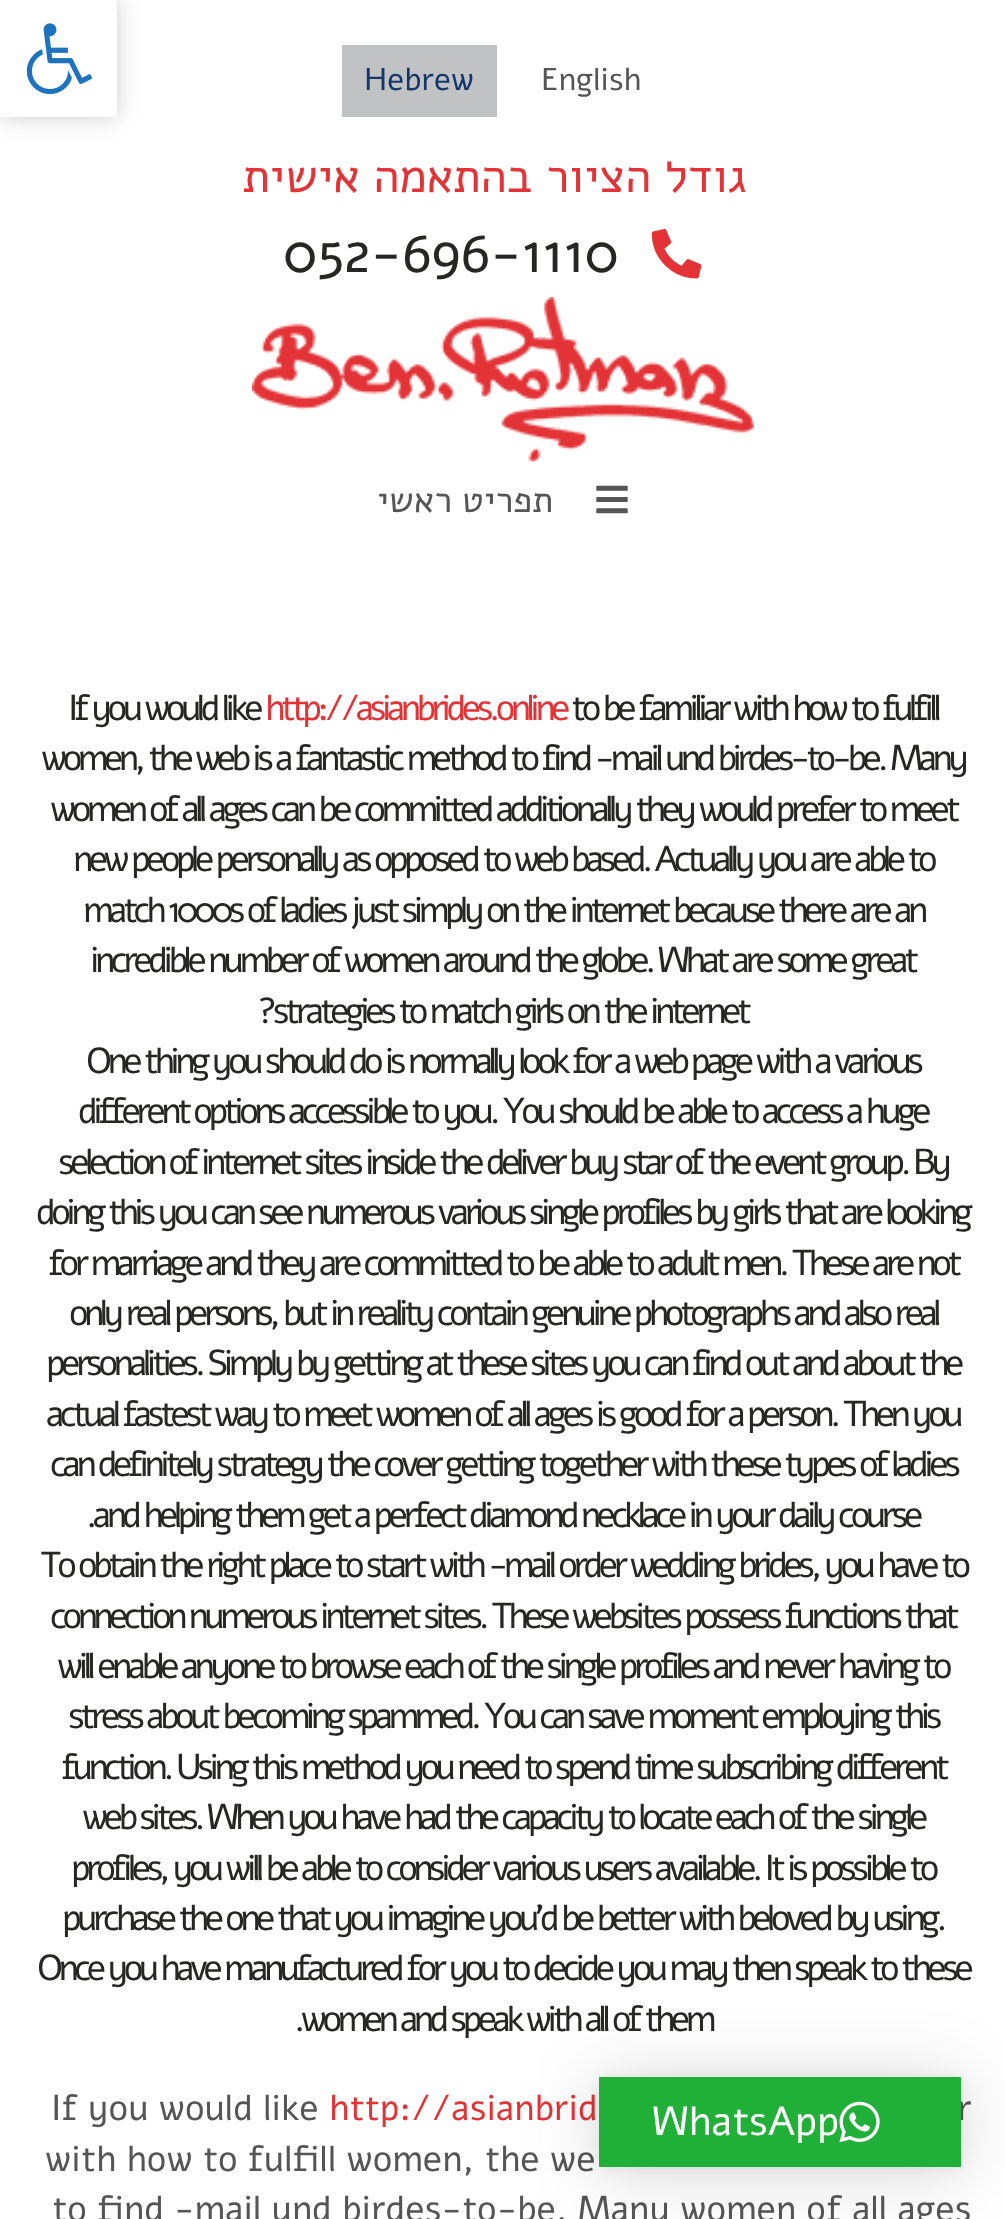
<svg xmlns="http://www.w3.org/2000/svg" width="1005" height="2219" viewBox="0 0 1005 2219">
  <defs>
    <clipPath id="clip1"><path d="M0 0H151V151H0ZM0 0H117V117H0Z" clip-rule="evenodd"/></clipPath>
    <filter id="blur1" x="-50%" y="-200%" width="200%" height="500%"><feGaussianBlur stdDeviation="11"/></filter>
    <filter id="blur2" x="-50%" y="-200%" width="200%" height="500%"><feGaussianBlur stdDeviation="36"/></filter>
    <filter id="blur3" x="-50%" y="-200%" width="200%" height="500%"><feGaussianBlur stdDeviation="7"/></filter>
  </defs>
  <rect width="100%" height="100%" fill="#ffffff"/>
  <g clip-path="url(#clip1)">
    <rect x="0" y="0" width="117" height="117" fill="#000000" fill-opacity="0.2" filter="url(#blur1)"/>
  </g>
  <image x="26" y="23" width="67" height="72" href="img1.png"/>
  <rect x="342" y="45" width="155" height="72" fill="#c0c2c4"/>
  <text x="364" y="90" font-family="Alef" font-size="31.5" fill="#14376a">Hebrew</text>
  <text x="541" y="90" font-family="Alef" font-size="31.5" fill="#555555">English</text>
  <text x="747" y="192" font-family="Alef" font-size="47.25" direction="rtl" fill="#e33337">גודל הציור בהתאמה אישית</text>
  <text x="283" y="272" font-family="Alef" font-size="56.25" fill="#262625">052-696-1110</text>
  <image x="651" y="228" width="51" height="51" href="img2.png"/>
  <image x="252" y="297" width="502" height="165" href="img3.png"/>
  <text x="553" y="512" font-family="Alef" font-size="36" direction="rtl" fill="#555555">תפריט ראשי</text>
  <image x="596" y="485" width="32" height="29" href="img4.png"/>
  <text x="68" y="720" font-family="Alef" font-size="36" letter-spacing="-4.5" fill="#262625">If you would like</text>
  <text x="265" y="720" font-family="Alef" font-size="36" letter-spacing="-4.5" fill="#e33337">http://asianbrides.online</text>
  <text x="571" y="720" font-family="Alef" font-size="36" letter-spacing="-4.5" fill="#262625">to be familiar with how to fulfill</text>
  <text x="41" y="770" font-family="Alef" font-size="36" letter-spacing="-4.5" fill="#262625">women, the web is a fantastic method to find -mail und birdes-to-be. Many</text>
  <text x="50" y="821" font-family="Alef" font-size="36" letter-spacing="-4.5" fill="#262625">women of all ages can be committed additionally they would prefer to meet</text>
  <text x="73" y="871" font-family="Alef" font-size="36" letter-spacing="-4.5" fill="#262625">new people personally as opposed to web based. Actually you are able to</text>
  <text x="83" y="922" font-family="Alef" font-size="36" letter-spacing="-4.5" fill="#262625">match 1000s of ladies just simply on the internet because there are an</text>
  <text x="90" y="972" font-family="Alef" font-size="36" letter-spacing="-4.5" fill="#262625">incredible number of women around the globe. What are some great</text>
  <text x="258" y="1023" font-family="Alef" font-size="36" letter-spacing="-4.5" fill="#262625">?strategies to match girls on the internet</text>
  <text x="86" y="1073" font-family="Alef" font-size="36" letter-spacing="-4.5" fill="#262625">One thing you should do is normally look for a web page with a various</text>
  <text x="78" y="1123" font-family="Alef" font-size="36" letter-spacing="-4.5" fill="#262625">different options accessible to you. You should be able to access a huge</text>
  <text x="58" y="1174" font-family="Alef" font-size="36" letter-spacing="-4.5" fill="#262625">selection of internet sites inside the deliver buy star of the event group. By</text>
  <text x="36" y="1224" font-family="Alef" font-size="36" letter-spacing="-4.5" fill="#262625">doing this you can see numerous various single profiles by girls that are looking</text>
  <text x="48" y="1275" font-family="Alef" font-size="36" letter-spacing="-4.5" fill="#262625">for marriage and they are committed to be able to adult men. These are not</text>
  <text x="69" y="1325" font-family="Alef" font-size="36" letter-spacing="-4.5" fill="#262625">only real persons, but in reality contain genuine photographs and also real</text>
  <text x="46" y="1375" font-family="Alef" font-size="36" letter-spacing="-4.5" fill="#262625">personalities. Simply by getting at these sites you can find out and about the</text>
  <text x="46" y="1426" font-family="Alef" font-size="36" letter-spacing="-4.5" fill="#262625">actual fastest way to meet women of all ages is good for a person. Then you</text>
  <text x="50" y="1476" font-family="Alef" font-size="36" letter-spacing="-4.5" fill="#262625">can definitely strategy the cover getting together with these types of ladies</text>
  <text x="86" y="1527" font-family="Alef" font-size="36" letter-spacing="-4.5" fill="#262625">.and helping them get a perfect diamond necklace in your daily course</text>
  <text x="40" y="1577" font-family="Alef" font-size="36" letter-spacing="-4.5" fill="#262625">To obtain the right place to start with -mail order wedding brides, you have to</text>
  <text x="50" y="1628" font-family="Alef" font-size="36" letter-spacing="-4.5" fill="#262625">connection numerous internet sites. These websites possess functions that</text>
  <text x="57" y="1678" font-family="Alef" font-size="36" letter-spacing="-4.5" fill="#262625">will enable anyone to browse each of the single profiles and never having to</text>
  <text x="68" y="1728" font-family="Alef" font-size="36" letter-spacing="-4.5" fill="#262625">stress about becoming spammed. You can save moment employing this</text>
  <text x="61" y="1779" font-family="Alef" font-size="36" letter-spacing="-4.5" fill="#262625">function. Using this method you need to spend time subscribing different</text>
  <text x="82" y="1829" font-family="Alef" font-size="36" letter-spacing="-4.5" fill="#262625">web sites. When you have had the capacity to locate each of the single</text>
  <text x="71" y="1880" font-family="Alef" font-size="36" letter-spacing="-4.5" fill="#262625">profiles, you will be able to consider various users available. It is possible to</text>
  <text x="62" y="1930" font-family="Alef" font-size="36" letter-spacing="-4.5" fill="#262625">purchase the one that you imagine you’d be better with beloved by using.</text>
  <text x="37" y="1980" font-family="Alef" font-size="36" letter-spacing="-4.5" fill="#262625">Once you have manufactured for you to decide you may then speak to these</text>
  <text x="294" y="2031" font-family="Alef" font-size="36" letter-spacing="-4.5" fill="#262625">.women and speak with all of them</text>
  <text x="51" y="2120" font-family="Alef" font-size="36" fill="#555555">If you would like</text>
  <text x="329" y="2120" font-family="Alef" font-size="36" fill="#e33337">http://asianbrid</text>
  <text x="957" y="2120" font-family="Alef" font-size="36" fill="#555555">r</text>
  <text x="45" y="2171" font-family="Alef" font-size="36" fill="#555555">with how to fulfill women, the we</text>
  <text x="52" y="2221" font-family="Alef" font-size="36" fill="#555555">to find -mail und birdes-to-be. Many women of all ages</text>
  <rect x="599" y="2081" width="362" height="90" fill="#000000" fill-opacity="0.16" filter="url(#blur2)"/>
  <rect x="599" y="2079" width="362" height="90" fill="#000000" fill-opacity="0.06" filter="url(#blur3)"/>
  <rect x="599" y="2077" width="362" height="90" fill="#20b038"/>
  <text x="652" y="2135" font-family="Alef" font-size="40.5" fill="#ffffff">WhatsApp</text>
  <image x="839" y="2101" width="41" height="42" href="img5.png"/>
</svg>
